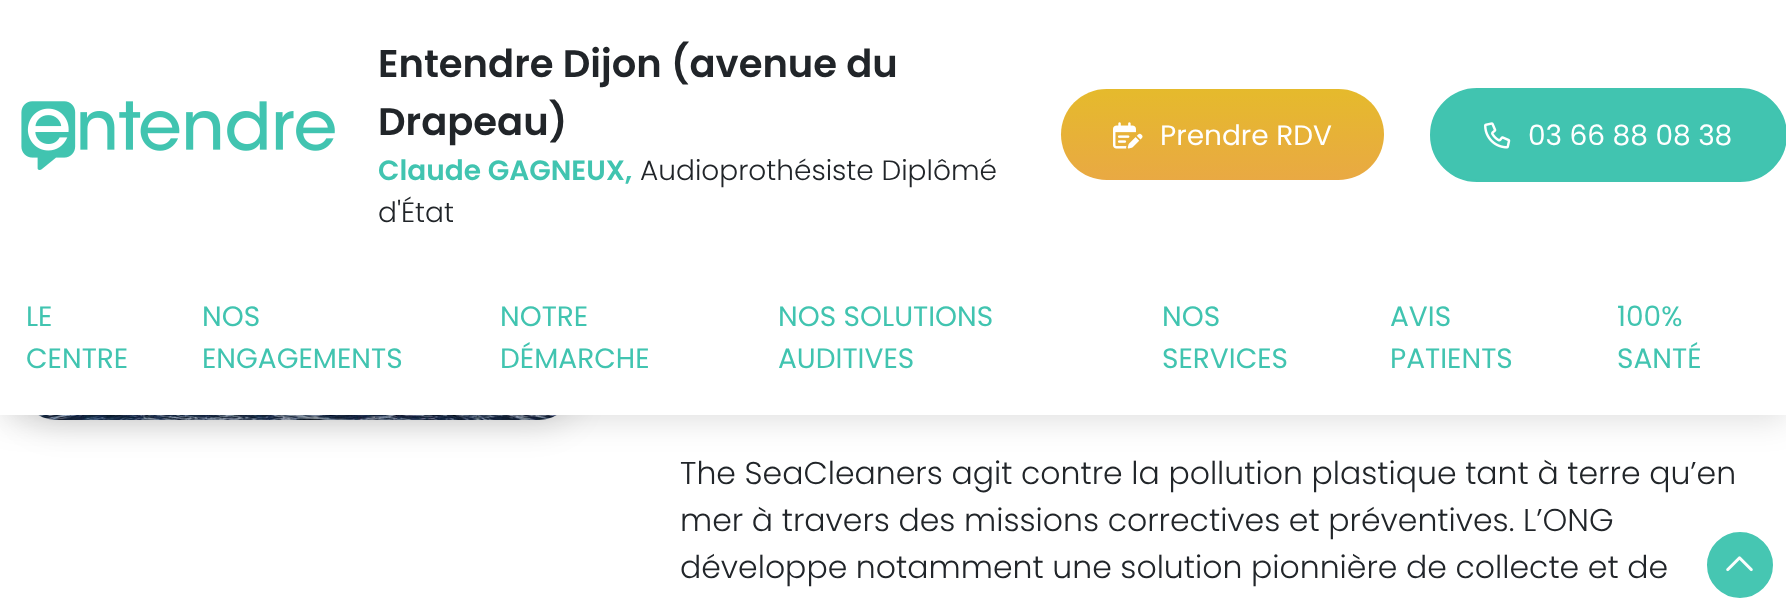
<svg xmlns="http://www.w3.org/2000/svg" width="1786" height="612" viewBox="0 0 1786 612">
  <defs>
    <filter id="blur1" x="-50%" y="-200%" width="200%" height="500%"><feGaussianBlur stdDeviation="17"/></filter>
    <linearGradient id="g1" gradientUnits="userSpaceOnUse" x1="1222" y1="89" x2="1222" y2="180"><stop offset="0" stop-color="#e5ba2c"/><stop offset="1" stop-color="#e9a943"/></linearGradient>
  </defs>
  <rect width="100%" height="100%" fill="#ffffff"/>
  <rect x="21" y="54" width="553" height="370" rx="35" fill="#000000" fill-opacity="0.14" filter="url(#blur1)"/>
  <image x="38" y="415" width="519" height="5" href="img5.png"/>
  <rect x="0" y="4" width="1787" height="414" fill="#000000" fill-opacity="0.14" filter="url(#blur1)"/>
  <rect x="0" y="0" width="1786" height="415" fill="#ffffff"/>
  <image x="21" y="101" width="314" height="69" href="img1.png"/>
  <text x="378" y="77" font-family="Poppins" font-size="38.5" font-weight="600" fill="#212529">Entendre Dijon (avenue du</text>
  <text x="378" y="135" font-family="Poppins" font-size="38.5" font-weight="600" fill="#212529">Drapeau)</text>
  <text x="378" y="180" font-family="Poppins" font-size="28" font-weight="600" fill="#41c4b0">Claude GAGNEUX,</text>
  <text x="640" y="180" font-family="Poppins" font-size="28" font-weight="300" fill="#212529">Audioprothésiste Diplômé</text>
  <text x="378" y="222" font-family="Poppins" font-size="28" font-weight="300" fill="#212529">d'État</text>
  <rect x="1061" y="89" width="323" height="91" rx="45.5" fill="url(#g1)"/>
  <image x="1113" y="122" width="30" height="27" href="img2.png"/>
  <text x="1160" y="145" font-family="Poppins" font-size="28" fill="#ffffff">Prendre RDV</text>
  <rect x="1431" y="89" width="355" height="92" rx="46" fill="#41c4b0" stroke="#41c4b0" stroke-width="2"/>
  <image x="1484" y="122" width="27" height="27" href="img3.png"/>
  <text x="1528" y="145" font-family="Poppins" font-size="28" fill="#ffffff">03 66 88 08 38</text>
  <text x="26" y="326" font-family="Poppins" font-size="28" fill="#41c4b0">LE</text>
  <text x="26" y="368" font-family="Poppins" font-size="28" fill="#41c4b0">CENTRE</text>
  <text x="202" y="326" font-family="Poppins" font-size="28" fill="#41c4b0">NOS</text>
  <text x="202" y="368" font-family="Poppins" font-size="28" fill="#41c4b0">ENGAGEMENTS</text>
  <text x="500" y="326" font-family="Poppins" font-size="28" fill="#41c4b0">NOTRE</text>
  <text x="500" y="368" font-family="Poppins" font-size="28" fill="#41c4b0">DÉMARCHE</text>
  <text x="778" y="326" font-family="Poppins" font-size="28" fill="#41c4b0">NOS SOLUTIONS</text>
  <text x="778" y="368" font-family="Poppins" font-size="28" fill="#41c4b0">AUDITIVES</text>
  <text x="1162" y="326" font-family="Poppins" font-size="28" fill="#41c4b0">NOS</text>
  <text x="1162" y="368" font-family="Poppins" font-size="28" fill="#41c4b0">SERVICES</text>
  <text x="1390" y="326" font-family="Poppins" font-size="28" fill="#41c4b0">AVIS</text>
  <text x="1390" y="368" font-family="Poppins" font-size="28" fill="#41c4b0">PATIENTS</text>
  <text x="1617" y="326" font-family="Poppins" font-size="28" fill="#41c4b0">100%</text>
  <text x="1617" y="368" font-family="Poppins" font-size="28" fill="#41c4b0">SANTÉ</text>
  <circle cx="1740" cy="565" r="34" fill="#46c6b2" stroke="#ffffff" stroke-width="2"/>
  <image x="1726" y="556" width="27" height="16" href="img4.png"/>
  <text x="680" y="484" font-family="Poppins" font-size="31.5" font-weight="300" fill="#212529">The SeaCleaners agit contre la pollution plastique tant à terre qu’en</text>
  <text x="680" y="531" font-family="Poppins" font-size="31.5" font-weight="300" fill="#212529">mer à travers des missions correctives et préventives. L’ONG</text>
  <text x="680" y="578" font-family="Poppins" font-size="31.5" font-weight="300" fill="#212529">développe notamment une solution pionnière de collecte et de</text>
</svg>
